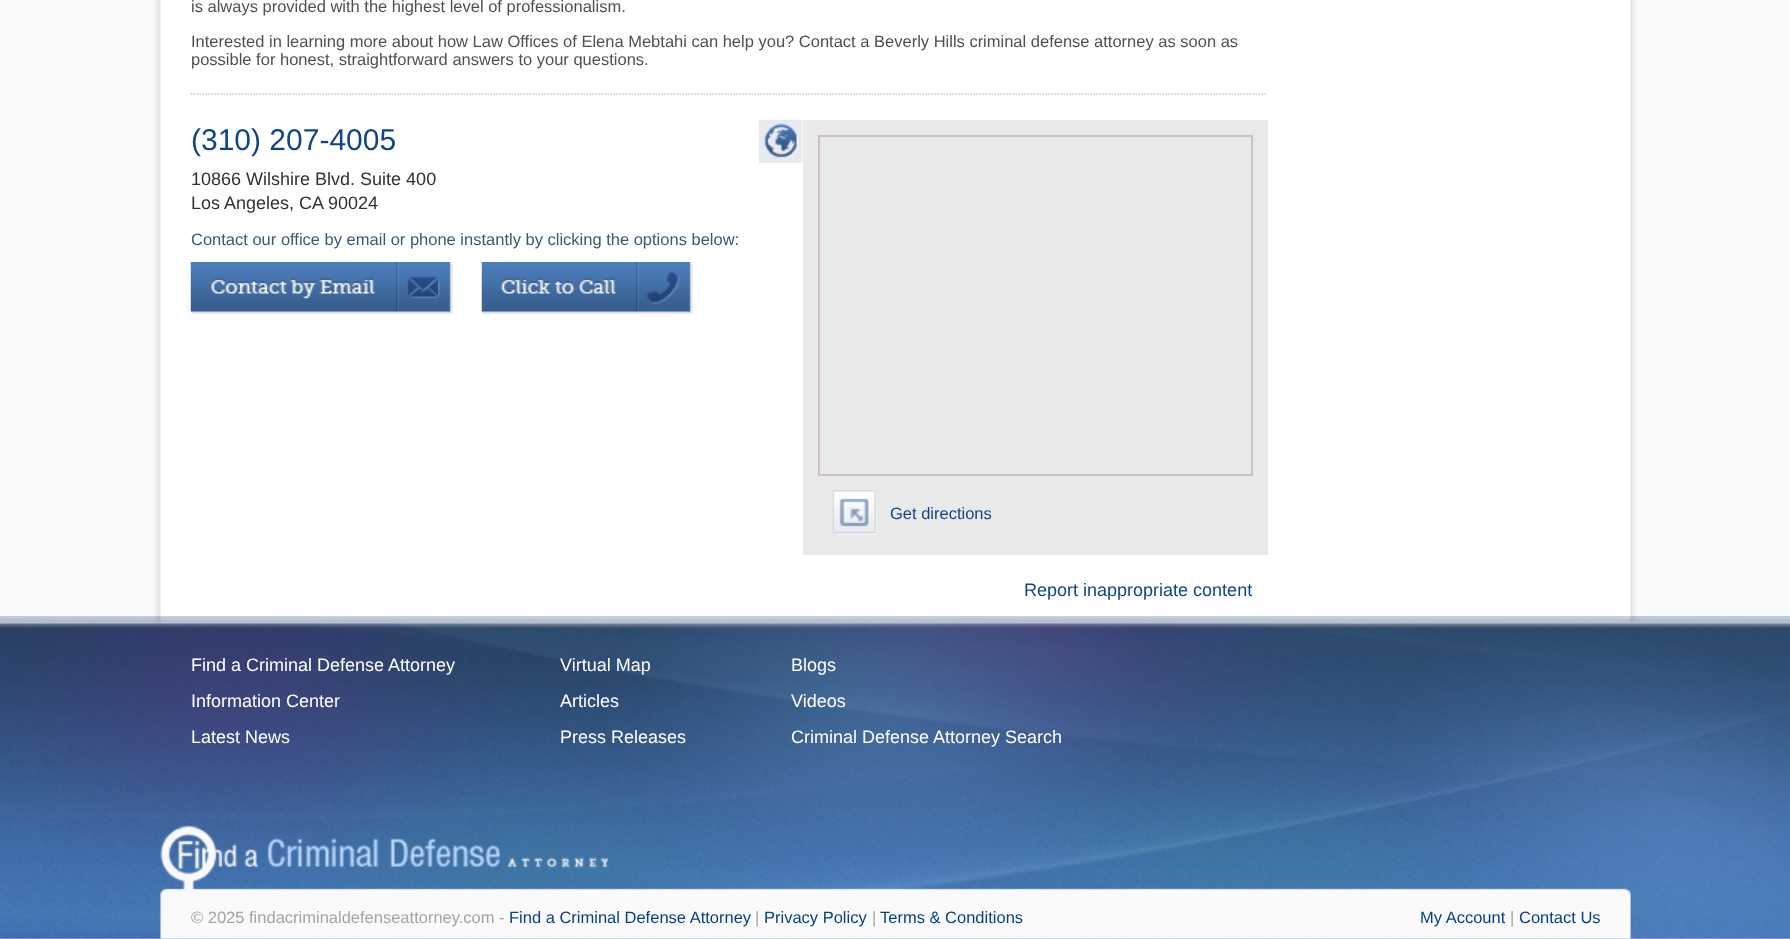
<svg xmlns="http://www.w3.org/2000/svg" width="1790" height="939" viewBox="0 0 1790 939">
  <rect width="100%" height="100%" fill="#fafafa"/>
  <image x="154" y="0" width="1483" height="616" href="img1.png"/>
  <text x="191" y="12" font-family="Liberation Sans" font-size="16.5" fill="#505050">is always provided with the highest level of professionalism.</text>
  <text x="191" y="47" font-family="Liberation Sans" font-size="16.5" fill="#505050">Interested in learning more about how Law Offices of Elena Mebtahi can help you? Contact a Beverly Hills criminal defense attorney as soon as</text>
  <text x="191" y="65" font-family="Liberation Sans" font-size="16.5" fill="#505050">possible for honest, straightforward answers to your questions.</text>
  <path d="M190.5 94H1267.5" fill="none" stroke="#cccccc" stroke-width="1.5" stroke-dasharray="1.5 1.5"/>
  <text x="191" y="150" font-family="Liberation Sans" font-size="30" fill="#104685">(310) 207-4005</text>
  <text x="191" y="185" font-family="Liberation Sans" font-size="18" fill="#323232">10866 Wilshire Blvd. Suite 400</text>
  <text x="191" y="209" font-family="Liberation Sans" font-size="18" fill="#323232">Los Angeles, CA</text>
  <text x="328" y="209" font-family="Liberation Sans" font-size="18" fill="#323232">90024</text>
  <text x="191" y="245" font-family="Liberation Sans" font-size="16.5" fill="#3e5773">Contact our office by email or phone instantly by clicking the options below:</text>
  <image x="190" y="262" width="263" height="53" href="img2.png"/>
  <image x="481" y="262" width="212" height="53" href="img3.png"/>
  <rect x="803" y="120" width="465" height="435" fill="#e9e9e9"/>
  <image x="759" y="119" width="44" height="44" href="img4.png"/>
  <rect x="819" y="136" width="433" height="339" fill="none" stroke="#d0c0c0" stroke-width="2"/>
  <image x="832" y="490" width="45" height="45" href="img5.png"/>
  <text x="890" y="519" font-family="Liberation Sans" font-size="16.5" fill="#104685">Get directions</text>
  <text x="1024" y="596" font-family="Liberation Sans" font-size="18" fill="#104685">Report inappropriate content</text>
  <image x="0" y="938" width="1790" height="1" href="img6.png"/>
  <image x="0" y="616" width="1790" height="323" href="img7.png"/>
  <text x="191" y="671" font-family="Liberation Sans" font-size="18" fill="#ffffff">Find a Criminal Defense Attorney</text>
  <text x="191" y="707" font-family="Liberation Sans" font-size="18" fill="#ffffff">Information Center</text>
  <text x="191" y="743" font-family="Liberation Sans" font-size="18" fill="#ffffff">Latest News</text>
  <text x="560" y="671" font-family="Liberation Sans" font-size="18" fill="#ffffff">Virtual Map</text>
  <text x="560" y="707" font-family="Liberation Sans" font-size="18" fill="#ffffff">Articles</text>
  <text x="560" y="743" font-family="Liberation Sans" font-size="18" fill="#ffffff">Press Releases</text>
  <text x="791" y="671" font-family="Liberation Sans" font-size="18" fill="#ffffff">Blogs</text>
  <text x="791" y="707" font-family="Liberation Sans" font-size="18" fill="#ffffff">Videos</text>
  <text x="791" y="743" font-family="Liberation Sans" font-size="18" fill="#ffffff">Criminal Defense Attorney Search</text>
  <text x="191" y="923" font-family="Liberation Sans" font-size="16.5" fill="#a4a4a4">© 2025 findacriminaldefenseattorney.com -</text>
  <text x="509" y="923" font-family="Liberation Sans" font-size="16.5" fill="#054185">Find a Criminal Defense Attorney</text>
  <text x="755" y="923" font-family="Liberation Sans" font-size="16.5" fill="#a4a4a4">|</text>
  <text x="764" y="923" font-family="Liberation Sans" font-size="16.5" fill="#054185">Privacy Policy</text>
  <text x="872" y="923" font-family="Liberation Sans" font-size="16.5" fill="#a4a4a4">|</text>
  <text x="880" y="923" font-family="Liberation Sans" font-size="16.5" fill="#054185">Terms &amp; Conditions</text>
  <text x="1420" y="923" font-family="Liberation Sans" font-size="16.5" fill="#054185">My Account</text>
  <text x="1510" y="923" font-family="Liberation Sans" font-size="16.5" fill="#a4a4a4">|</text>
  <text x="1519" y="923" font-family="Liberation Sans" font-size="16.5" fill="#054185">Contact Us</text>
</svg>
